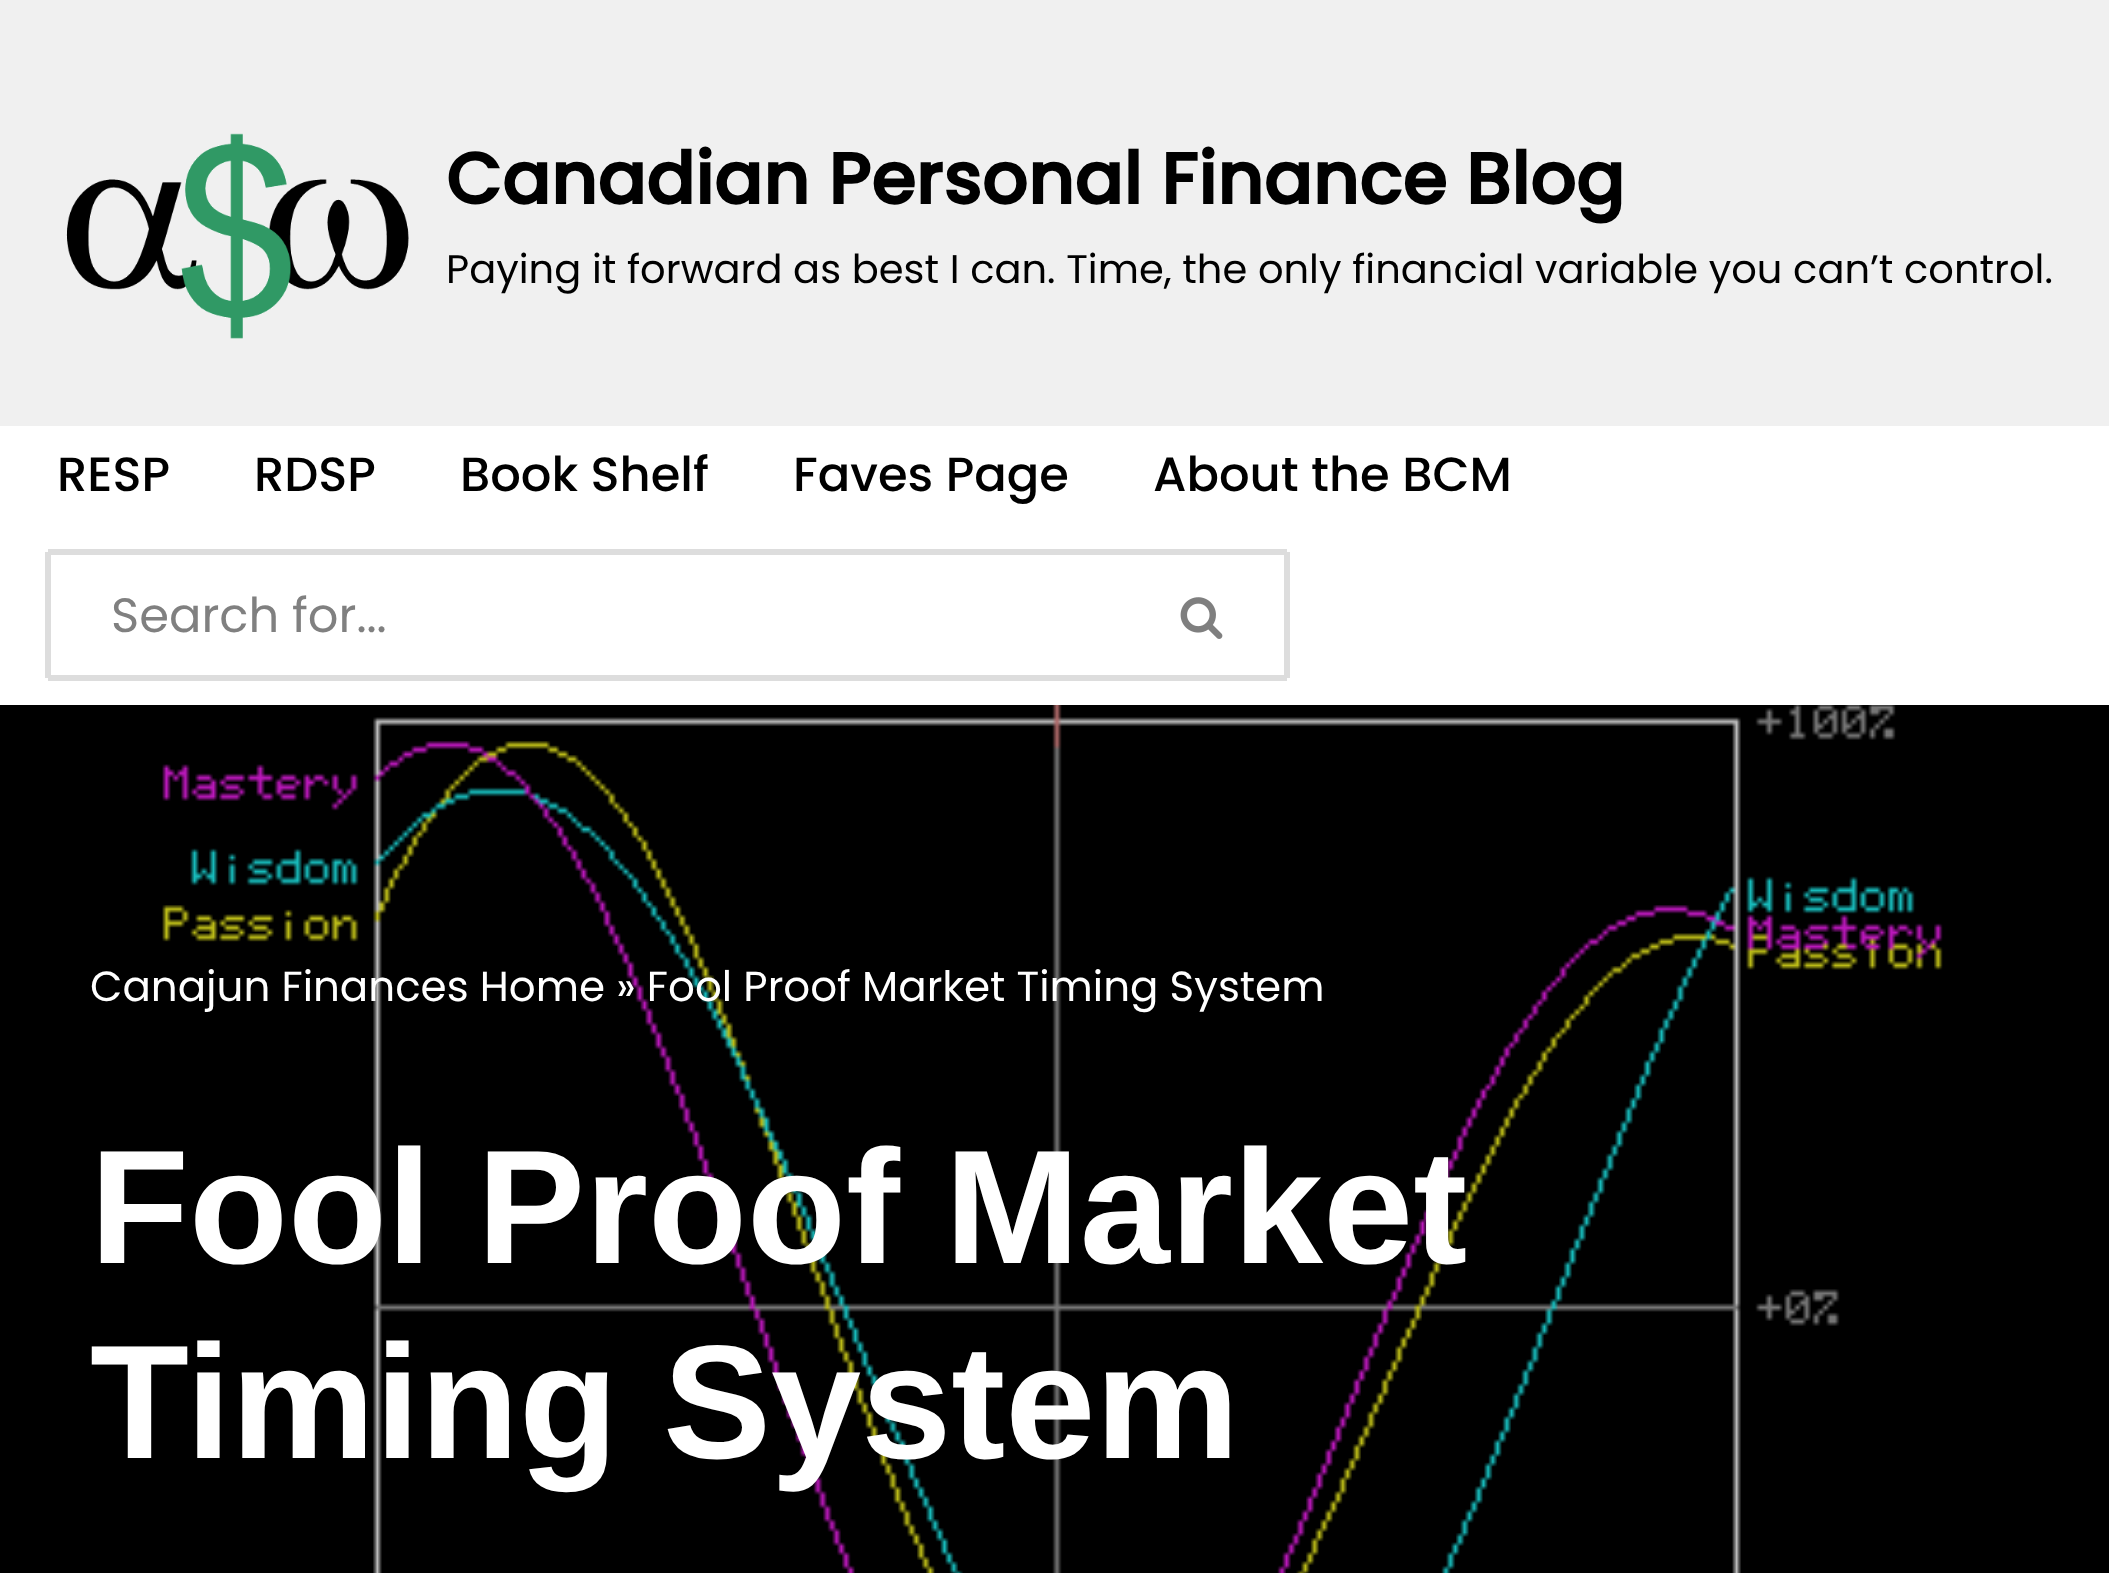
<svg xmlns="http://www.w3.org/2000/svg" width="2109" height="1573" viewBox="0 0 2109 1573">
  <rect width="100%" height="100%" fill="#ffffff"/>
  <rect x="0" y="0" width="2109" height="426" fill="#f0f0f0"/>
  <image x="66" y="133" width="343" height="206" href="img1.png"/>
  <text x="446" y="204" font-family="Poppins" font-size="72" font-weight="bold" fill="#000000">Canadian Personal Finance Blog</text>
  <text x="446" y="283" font-family="Poppins" font-size="40" fill="#000000">Paying it forward as best I can. Time, the only financial variable you can’t control.</text>
  <text x="57" y="491" font-family="Poppins" font-size="48" font-weight="500" fill="#000000">RESP</text>
  <text x="254" y="491" font-family="Poppins" font-size="48" font-weight="500" fill="#000000">RDSP</text>
  <text x="460" y="491" font-family="Poppins" font-size="48" font-weight="500" fill="#000000">Book Shelf</text>
  <text x="793" y="491" font-family="Poppins" font-size="48" font-weight="500" fill="#000000">Faves Page</text>
  <text x="1153" y="491" font-family="Poppins" font-size="48" font-weight="500" fill="#000000">About the BCM</text>
  <rect x="48" y="549" width="1239" height="6" fill="#dddddd"/>
  <rect x="48" y="675" width="1074" height="6" fill="#dddddd"/>
  <rect x="45" y="552" width="6" height="126" fill="#dddddd"/>
  <text x="111" y="632" font-family="Poppins" font-size="48" fill="#808080">Search for...</text>
  <rect x="1284" y="552" width="6" height="126" fill="#dddddd"/>
  <rect x="1122" y="675" width="165" height="6" fill="#dddddd"/>
  <image x="1180" y="597" width="43" height="42" href="img2.png"/>
  <image x="0" y="705" width="2109" height="868" href="img3.png"/>
  <text x="90" y="1001" font-family="Poppins" font-size="42" fill="#ffffff">Canajun Finances Home » Fool Proof Market Timing System</text>
  <text x="90" y="1263" font-family="Liberation Sans" font-size="162" font-weight="bold" fill="#ffffff">Fool Proof Market</text>
  <text x="90" y="1458" font-family="Liberation Sans" font-size="162" font-weight="bold" fill="#ffffff">Timing System</text>
</svg>
